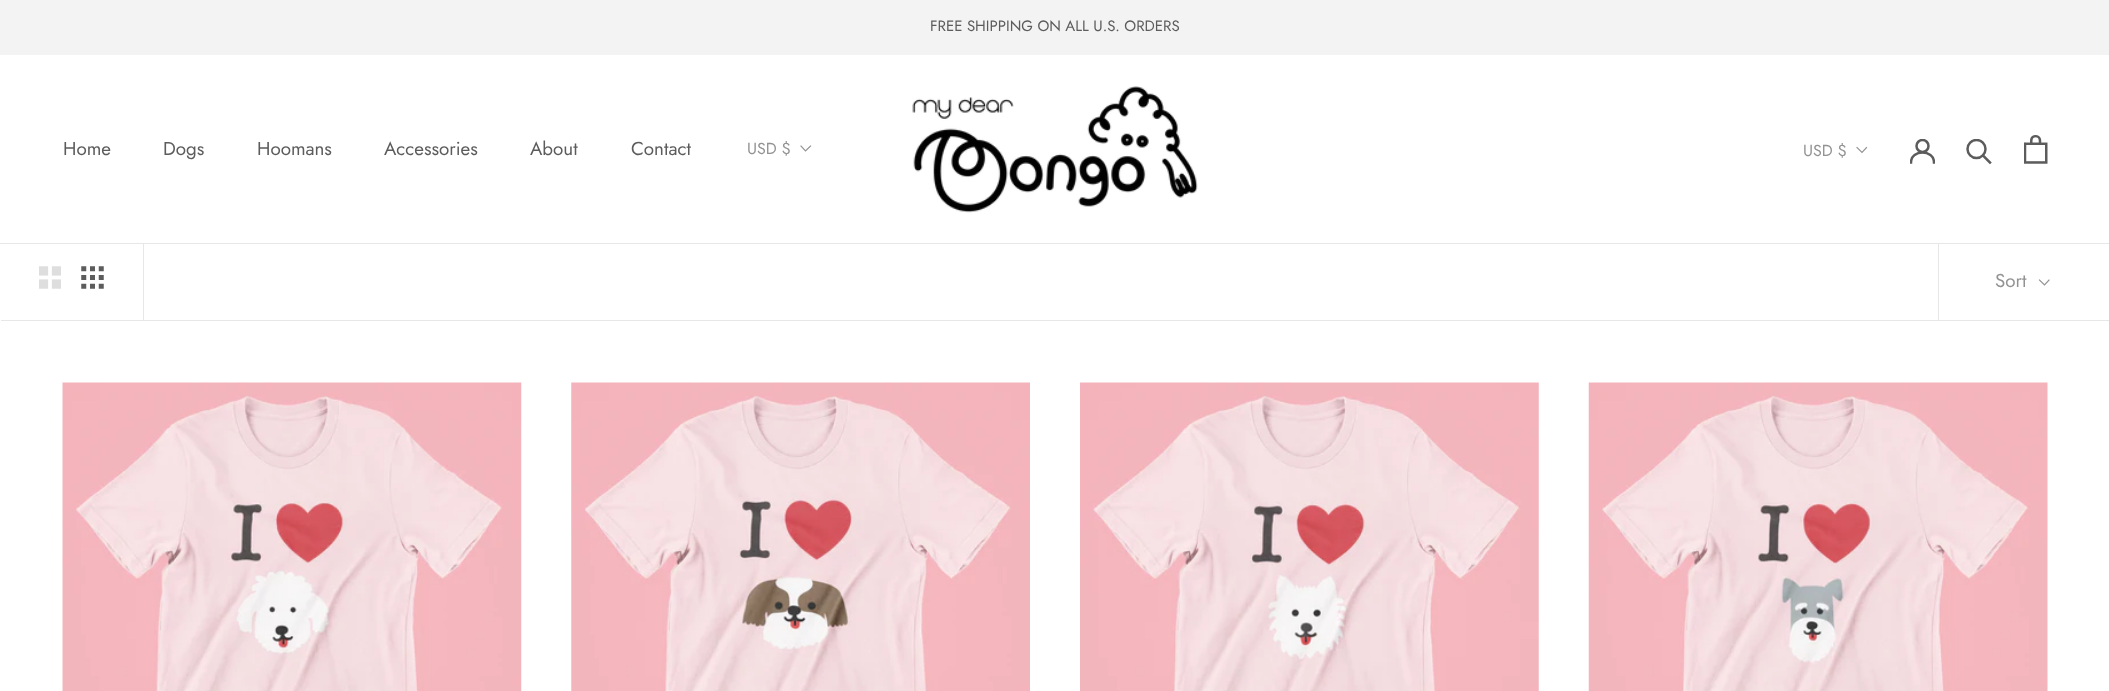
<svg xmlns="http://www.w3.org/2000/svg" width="2109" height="691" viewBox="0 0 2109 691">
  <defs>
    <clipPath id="clip1"><rect x="1910" y="139" width="25" height="25"/></clipPath>
    <clipPath id="clip2"><rect x="1966" y="139" width="27" height="26"/></clipPath>
  </defs>
  <rect width="100%" height="100%" fill="#ffffff"/>
  <rect x="0" y="0" width="2109" height="55" fill="#f3f3f3"/>
  <text x="930" y="31" font-family="Jost" font-size="15" fill="#5c5c5c">FREE SHIPPING ON ALL U.S. ORDERS</text>
  <rect x="0" y="243" width="2109" height="1" fill="#e7e7e7"/>
  <text x="63" y="155" font-family="Jost" font-size="18.75" fill="#5c5c5c">Home</text>
  <text x="163" y="155" font-family="Jost" font-size="18.75" fill="#5c5c5c">Dogs</text>
  <text x="257" y="155" font-family="Jost" font-size="18.75" fill="#5c5c5c">Hoomans</text>
  <text x="384" y="155" font-family="Jost" font-size="18.75" fill="#5c5c5c">Accessories</text>
  <text x="530" y="155" font-family="Jost" font-size="18.75" fill="#5c5c5c">About</text>
  <text x="631" y="155" font-family="Jost" font-size="18.75" fill="#5c5c5c">Contact</text>
  <text x="747" y="154" font-family="Jost" font-size="16" fill="#939393">USD $</text>
  <path d="M810.5 146L805.5 151L801 146" fill="none" stroke="#939393" stroke-width="1.2" stroke-linecap="square"/>
  <image x="912" y="86" width="286" height="127" href="img1.png"/>
  <text x="1803" y="156" font-family="Jost" font-size="16" fill="#939393">USD $</text>
  <path d="M1866.5 147.5L1862 152.5L1857 147.5" fill="none" stroke="#939393" stroke-width="1.2" stroke-linecap="square"/>
  <g clip-path="url(#clip1)">
    <path d="M1911 162.5C1911 149 1934 149 1934 162.5" fill="none" stroke="#5c5c5c" stroke-width="2.5" stroke-linecap="square"/>
    <circle cx="1922.5" cy="146" r="6" fill="none" stroke="#5c5c5c" stroke-width="2.5"/>
  </g>
  <path d="M1990 162.5L1983 155.5" fill="none" stroke="#5c5c5c" stroke-width="2.5" stroke-linecap="square"/>
  <g clip-path="url(#clip2)">
    <circle cx="1976.5" cy="149" r="9" fill="none" stroke="#5c5c5c" stroke-width="2.5"/>
  </g>
  <image x="2024" y="135" width="24" height="29" href="img2.png"/>
  <path d="M1 320V321H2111V245H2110V320Z" fill="#e7e7e7"/>
  <rect x="143" y="244" width="1" height="76" fill="#e7e7e7"/>
  <image x="39" y="266" width="22" height="23" href="img3.png"/>
  <image x="81" y="266" width="23" height="23" href="img4.png"/>
  <rect x="1938" y="244" width="1" height="76" fill="#e7e7e7"/>
  <text x="1995" y="287" font-family="Jost" font-size="18.75" fill="#939393">Sort</text>
  <path d="M2049 280L2044.5 285L2039.5 280" fill="none" stroke="#939393" stroke-width="1.2" stroke-linecap="square"/>
  <image x="62" y="382" width="460" height="309" href="img5.png"/>
  <image x="571" y="382" width="459" height="309" href="img6.png"/>
  <image x="1080" y="382" width="459" height="309" href="img7.png"/>
  <image x="1588" y="382" width="460" height="309" href="img8.png"/>
</svg>
